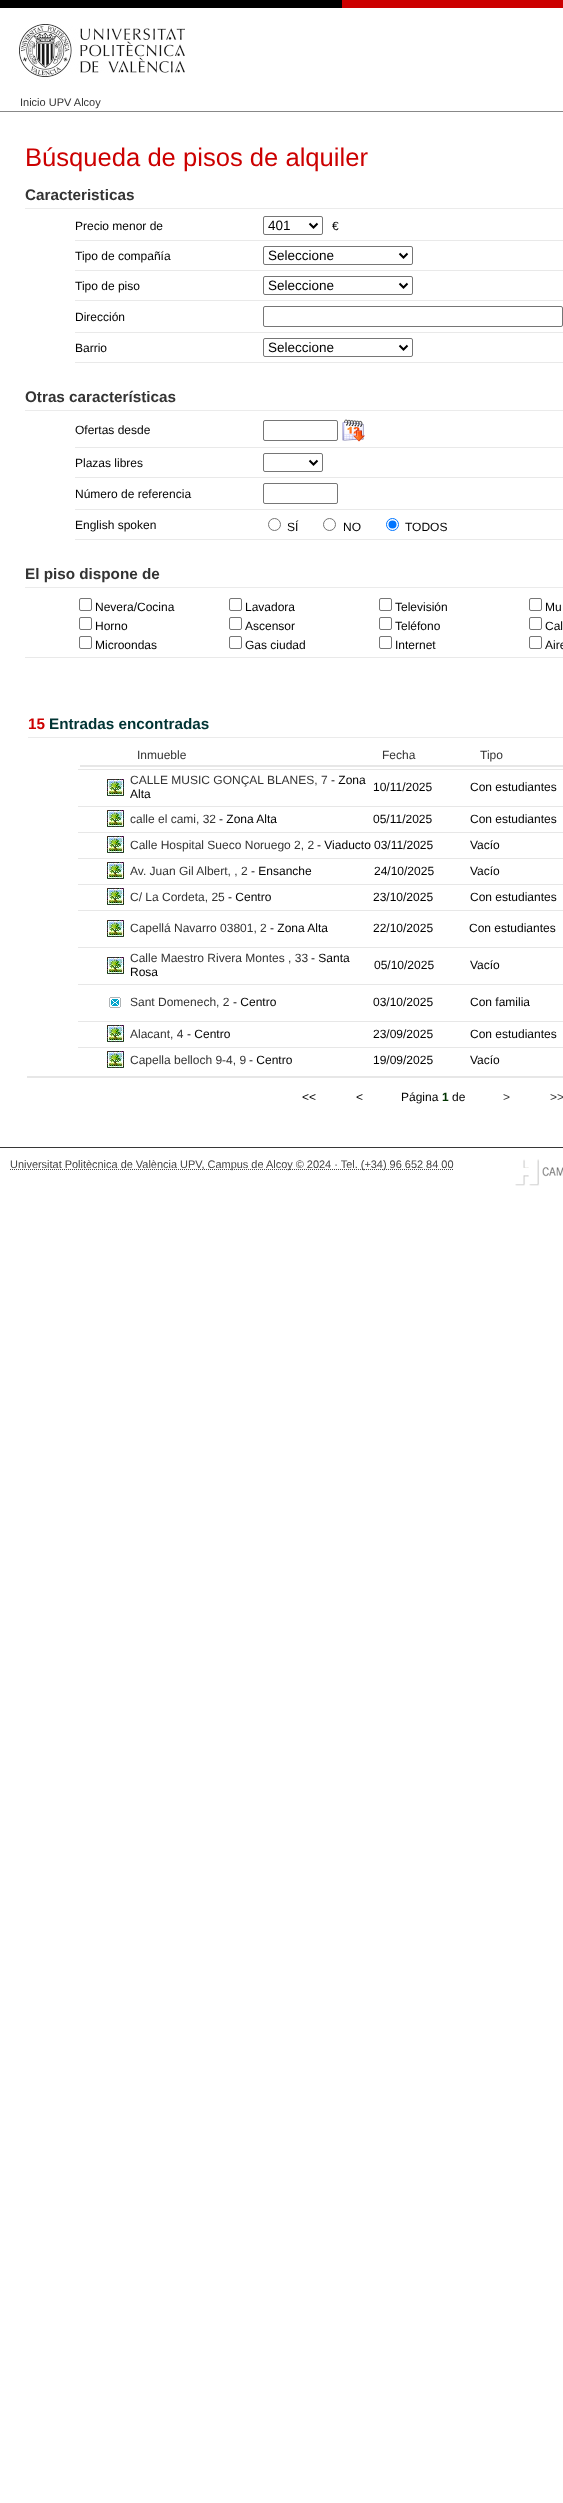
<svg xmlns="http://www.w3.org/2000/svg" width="563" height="2503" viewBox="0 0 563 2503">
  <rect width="100%" height="100%" fill="#ffffff"/>
  <rect x="342" y="0" width="221" height="8" fill="#cc0000"/>
  <rect x="0" y="0" width="342" height="8" fill="#000000"/>
  <image x="19" y="24" width="166" height="53" href="img1.png"/>
  <rect x="0" y="111" width="563" height="1" fill="#888888"/>
  <text x="20" y="106" font-family="Liberation Sans" font-size="11" fill="#333333">Inicio UPV Alcoy</text>
  <text x="25" y="166" font-family="Liberation Sans" font-size="25.6" fill="#cc0000">Búsqueda de pisos de alquiler</text>
  <text x="25" y="200" font-family="Liberation Sans" font-size="15.25" font-weight="bold" fill="#333333">Caracteristicas</text>
  <rect x="25" y="208" width="538" height="1" fill="#ebebeb"/>
  <text x="75" y="230" font-family="Liberation Sans" font-size="12" fill="#000000">Precio menor de</text>
  <rect x="263.5" y="216.5" width="59" height="18" rx="1.5" fill="none" stroke="#767676"/>
  <path d="M309.5 223.5L313.5 227.5L317.5 223.5" fill="none" stroke="#000000" stroke-width="2"/>
  <text x="268" y="230" font-family="Liberation Sans" font-size="13.5" fill="#000000">401</text>
  <text x="332" y="230" font-family="Liberation Sans" font-size="12" fill="#000000">€</text>
  <rect x="75" y="240" width="488" height="1" fill="#e9e9e9"/>
  <text x="75" y="260" font-family="Liberation Sans" font-size="12" fill="#000000">Tipo de compañía</text>
  <rect x="263.5" y="246.5" width="149" height="18" rx="1.5" fill="none" stroke="#767676"/>
  <path d="M399.5 253.5L403.5 257.5L407.5 253.5" fill="none" stroke="#000000" stroke-width="2"/>
  <text x="268" y="260" font-family="Liberation Sans" font-size="13.5" fill="#000000">Seleccione</text>
  <rect x="75" y="270" width="488" height="1" fill="#e9e9e9"/>
  <text x="75" y="290" font-family="Liberation Sans" font-size="12" fill="#000000">Tipo de piso</text>
  <rect x="263.5" y="276.5" width="149" height="18" rx="1.5" fill="none" stroke="#767676"/>
  <path d="M399.5 283.5L403.5 287.5L407.5 283.5" fill="none" stroke="#000000" stroke-width="2"/>
  <text x="268" y="290" font-family="Liberation Sans" font-size="13.5" fill="#000000">Seleccione</text>
  <rect x="75" y="300" width="488" height="1" fill="#e9e9e9"/>
  <text x="75" y="321" font-family="Liberation Sans" font-size="12" fill="#000000">Dirección</text>
  <rect x="263.5" y="306.5" width="299" height="20" rx="1.5" fill="none" stroke="#767676"/>
  <rect x="75" y="332" width="488" height="1" fill="#e9e9e9"/>
  <text x="75" y="352" font-family="Liberation Sans" font-size="12" fill="#000000">Barrio</text>
  <rect x="263.5" y="338.5" width="149" height="18" rx="1.5" fill="none" stroke="#767676"/>
  <path d="M399.5 345.5L403.5 349.5L407.5 345.5" fill="none" stroke="#000000" stroke-width="2"/>
  <text x="268" y="352" font-family="Liberation Sans" font-size="13.5" fill="#000000">Seleccione</text>
  <rect x="75" y="362" width="488" height="1" fill="#e9e9e9"/>
  <text x="25" y="402" font-family="Liberation Sans" font-size="15.25" font-weight="bold" fill="#333333">Otras características</text>
  <rect x="25" y="410" width="538" height="1" fill="#ebebeb"/>
  <text x="75" y="434" font-family="Liberation Sans" font-size="12" fill="#000000">Ofertas desde</text>
  <rect x="263.5" y="420.5" width="74" height="20" rx="1.5" fill="none" stroke="#767676"/>
  <image x="342" y="419" width="23" height="23" href="img2.png"/>
  <rect x="75" y="447" width="488" height="1" fill="#e9e9e9"/>
  <text x="75" y="467" font-family="Liberation Sans" font-size="12" fill="#000000">Plazas libres</text>
  <rect x="263.5" y="453.5" width="59" height="18" rx="1.5" fill="none" stroke="#767676"/>
  <path d="M309.5 460.5L313.5 464.5L317.5 460.5" fill="none" stroke="#000000" stroke-width="2"/>
  <rect x="75" y="477" width="488" height="1" fill="#e9e9e9"/>
  <text x="75" y="498" font-family="Liberation Sans" font-size="12" fill="#000000">Número de referencia</text>
  <rect x="263.5" y="483.5" width="74" height="20" rx="1.5" fill="none" stroke="#767676"/>
  <rect x="75" y="509" width="488" height="1" fill="#e9e9e9"/>
  <text x="75" y="529" font-family="Liberation Sans" font-size="12" fill="#000000">English spoken</text>
  <circle cx="274.5" cy="524.5" r="6" fill="none" stroke="#767676"/>
  <text x="287" y="531" font-family="Liberation Sans" font-size="12" fill="#000000">SÍ</text>
  <circle cx="329.5" cy="524.5" r="6" fill="none" stroke="#767676"/>
  <text x="343" y="531" font-family="Liberation Sans" font-size="12" fill="#000000">NO</text>
  <circle cx="392.5" cy="524.5" r="6" fill="none" stroke="#0075ff"/>
  <circle cx="392.5" cy="524.5" r="4" fill="#0075ff"/>
  <text x="405" y="531" font-family="Liberation Sans" font-size="12" fill="#000000">TODOS</text>
  <rect x="75" y="539" width="488" height="1" fill="#e9e9e9"/>
  <text x="25" y="579" font-family="Liberation Sans" font-size="15.25" font-weight="bold" fill="#333333">El piso dispone de</text>
  <rect x="25" y="587" width="538" height="1" fill="#ebebeb"/>
  <rect x="79.5" y="598.5" width="12" height="12" rx="1.5" fill="none" stroke="#767676"/>
  <text x="95" y="611" font-family="Liberation Sans" font-size="12" fill="#000000">Nevera/Cocina</text>
  <rect x="229.5" y="598.5" width="12" height="12" rx="1.5" fill="none" stroke="#767676"/>
  <text x="245" y="611" font-family="Liberation Sans" font-size="12" fill="#000000">Lavadora</text>
  <rect x="379.5" y="598.5" width="12" height="12" rx="1.5" fill="none" stroke="#767676"/>
  <text x="395" y="611" font-family="Liberation Sans" font-size="12" fill="#000000">Televisión</text>
  <rect x="529.5" y="598.5" width="12" height="12" rx="1.5" fill="none" stroke="#767676"/>
  <text x="545" y="611" font-family="Liberation Sans" font-size="12" fill="#000000">Mu</text>
  <rect x="79.5" y="617.5" width="12" height="12" rx="1.5" fill="none" stroke="#767676"/>
  <text x="95" y="630" font-family="Liberation Sans" font-size="12" fill="#000000">Horno</text>
  <rect x="229.5" y="617.5" width="12" height="12" rx="1.5" fill="none" stroke="#767676"/>
  <text x="245" y="630" font-family="Liberation Sans" font-size="12" fill="#000000">Ascensor</text>
  <rect x="379.5" y="617.5" width="12" height="12" rx="1.5" fill="none" stroke="#767676"/>
  <text x="395" y="630" font-family="Liberation Sans" font-size="12" fill="#000000">Teléfono</text>
  <rect x="529.5" y="617.5" width="12" height="12" rx="1.5" fill="none" stroke="#767676"/>
  <text x="545" y="630" font-family="Liberation Sans" font-size="12" fill="#000000">Cal</text>
  <rect x="79.5" y="636.5" width="12" height="12" rx="1.5" fill="none" stroke="#767676"/>
  <text x="95" y="649" font-family="Liberation Sans" font-size="12" fill="#000000">Microondas</text>
  <rect x="229.5" y="636.5" width="12" height="12" rx="1.5" fill="none" stroke="#767676"/>
  <text x="245" y="649" font-family="Liberation Sans" font-size="12" fill="#000000">Gas ciudad</text>
  <rect x="379.5" y="636.5" width="12" height="12" rx="1.5" fill="none" stroke="#767676"/>
  <text x="395" y="649" font-family="Liberation Sans" font-size="12" fill="#000000">Internet</text>
  <rect x="529.5" y="636.5" width="12" height="12" rx="1.5" fill="none" stroke="#767676"/>
  <text x="545" y="649" font-family="Liberation Sans" font-size="12" fill="#000000">Aire</text>
  <rect x="25" y="657" width="538" height="1" fill="#e9e9e9"/>
  <text x="28" y="729" font-family="Liberation Sans" font-size="15.25" font-weight="bold" fill="#cc0000">15</text>
  <text x="49" y="729" font-family="Liberation Sans" font-size="15.25" font-weight="bold" fill="#003333">Entradas encontradas</text>
  <rect x="28" y="737" width="535" height="1" fill="#ebebeb"/>
  <text x="137" y="759" font-family="Liberation Sans" font-size="12" fill="#333333">Inmueble</text>
  <text x="382" y="759" font-family="Liberation Sans" font-size="12" fill="#333333">Fecha</text>
  <text x="480" y="759" font-family="Liberation Sans" font-size="12" fill="#333333">Tipo</text>
  <rect x="80" y="765" width="483" height="2" fill="#e7e7e7"/>
  <rect x="78" y="769" width="485" height="1" fill="#e7e7e7"/>
  <image x="107" y="779" width="17" height="17" href="img3.png"/>
  <text x="130" y="784" font-family="Liberation Sans" font-size="12" fill="#333333">CALLE MUSIC GONÇAL BLANES, 7</text>
  <text x="331" y="784" font-family="Liberation Sans" font-size="12" fill="#000000">- Zona</text>
  <text x="130" y="798" font-family="Liberation Sans" font-size="12" fill="#000000">Alta</text>
  <text x="373" y="791" font-family="Liberation Sans" font-size="12" fill="#000000">10/11/2025</text>
  <text x="470" y="791" font-family="Liberation Sans" font-size="12" fill="#000000">Con estudiantes</text>
  <rect x="78" y="806" width="485" height="1" fill="#e7e7e7"/>
  <image x="107" y="810" width="17" height="17" href="img3.png"/>
  <text x="130" y="823" font-family="Liberation Sans" font-size="12" fill="#333333">calle el cami, 32</text>
  <text x="219" y="823" font-family="Liberation Sans" font-size="12" fill="#000000">- Zona Alta</text>
  <text x="373" y="823" font-family="Liberation Sans" font-size="12" fill="#000000">05/11/2025</text>
  <text x="470" y="823" font-family="Liberation Sans" font-size="12" fill="#000000">Con estudiantes</text>
  <rect x="78" y="832" width="485" height="1" fill="#e7e7e7"/>
  <image x="107" y="836" width="17" height="17" href="img3.png"/>
  <text x="130" y="849" font-family="Liberation Sans" font-size="12" fill="#333333">Calle Hospital Sueco Noruego 2, 2</text>
  <text x="317" y="849" font-family="Liberation Sans" font-size="12" fill="#000000">- Viaducto</text>
  <text x="374" y="849" font-family="Liberation Sans" font-size="12" fill="#000000">03/11/2025</text>
  <text x="470" y="849" font-family="Liberation Sans" font-size="12" fill="#000000">Vacío</text>
  <rect x="78" y="858" width="485" height="1" fill="#e7e7e7"/>
  <image x="107" y="862" width="17" height="17" href="img3.png"/>
  <text x="130" y="875" font-family="Liberation Sans" font-size="12" fill="#333333">Av. Juan Gil Albert, , 2</text>
  <text x="251" y="875" font-family="Liberation Sans" font-size="12" fill="#000000">- Ensanche</text>
  <text x="374" y="875" font-family="Liberation Sans" font-size="12" fill="#000000">24/10/2025</text>
  <text x="470" y="875" font-family="Liberation Sans" font-size="12" fill="#000000">Vacío</text>
  <rect x="78" y="884" width="485" height="1" fill="#e7e7e7"/>
  <image x="107" y="888" width="17" height="17" href="img3.png"/>
  <text x="130" y="901" font-family="Liberation Sans" font-size="12" fill="#333333">C/ La Cordeta, 25</text>
  <text x="228" y="901" font-family="Liberation Sans" font-size="12" fill="#000000">- Centro</text>
  <text x="373" y="901" font-family="Liberation Sans" font-size="12" fill="#000000">23/10/2025</text>
  <text x="470" y="901" font-family="Liberation Sans" font-size="12" fill="#000000">Con estudiantes</text>
  <rect x="78" y="910" width="485" height="1" fill="#e7e7e7"/>
  <image x="107" y="920" width="17" height="17" href="img3.png"/>
  <text x="130" y="932" font-family="Liberation Sans" font-size="12" fill="#333333">Capellá Navarro 03801, 2</text>
  <text x="270" y="932" font-family="Liberation Sans" font-size="12" fill="#000000">- Zona Alta</text>
  <text x="373" y="932" font-family="Liberation Sans" font-size="12" fill="#000000">22/10/2025</text>
  <text x="469" y="932" font-family="Liberation Sans" font-size="12" fill="#000000">Con estudiantes</text>
  <rect x="78" y="947" width="485" height="1" fill="#e7e7e7"/>
  <image x="107" y="957" width="17" height="17" href="img3.png"/>
  <text x="130" y="962" font-family="Liberation Sans" font-size="12" fill="#333333">Calle Maestro Rivera Montes , 33</text>
  <text x="311" y="962" font-family="Liberation Sans" font-size="12" fill="#000000">- Santa</text>
  <text x="130" y="976" font-family="Liberation Sans" font-size="12" fill="#000000">Rosa</text>
  <text x="374" y="969" font-family="Liberation Sans" font-size="12" fill="#000000">05/10/2025</text>
  <text x="470" y="969" font-family="Liberation Sans" font-size="12" fill="#000000">Vacío</text>
  <rect x="78" y="984" width="485" height="1" fill="#e7e7e7"/>
  <image x="109" y="997" width="12" height="11" href="img4.png"/>
  <text x="130" y="1006" font-family="Liberation Sans" font-size="12" fill="#333333">Sant Domenech, 2</text>
  <text x="233" y="1006" font-family="Liberation Sans" font-size="12" fill="#000000">- Centro</text>
  <text x="373" y="1006" font-family="Liberation Sans" font-size="12" fill="#000000">03/10/2025</text>
  <text x="470" y="1006" font-family="Liberation Sans" font-size="12" fill="#000000">Con familia</text>
  <rect x="78" y="1021" width="485" height="1" fill="#e7e7e7"/>
  <image x="107" y="1025" width="17" height="17" href="img3.png"/>
  <text x="130" y="1038" font-family="Liberation Sans" font-size="12" fill="#333333">Alacant, 4</text>
  <text x="187" y="1038" font-family="Liberation Sans" font-size="12" fill="#000000">- Centro</text>
  <text x="373" y="1038" font-family="Liberation Sans" font-size="12" fill="#000000">23/09/2025</text>
  <text x="470" y="1038" font-family="Liberation Sans" font-size="12" fill="#000000">Con estudiantes</text>
  <rect x="78" y="1047" width="485" height="1" fill="#e7e7e7"/>
  <image x="107" y="1051" width="17" height="17" href="img3.png"/>
  <text x="130" y="1064" font-family="Liberation Sans" font-size="12" fill="#333333">Capella belloch 9-4, 9</text>
  <text x="249" y="1064" font-family="Liberation Sans" font-size="12" fill="#000000">- Centro</text>
  <text x="373" y="1064" font-family="Liberation Sans" font-size="12" fill="#000000">19/09/2025</text>
  <text x="470" y="1064" font-family="Liberation Sans" font-size="12" fill="#000000">Vacío</text>
  <rect x="27" y="1076" width="536" height="2" fill="#e7e7e7"/>
  <text x="302" y="1101" font-family="Liberation Sans" font-size="12" fill="#000000">&lt;&lt;</text>
  <text x="356" y="1101" font-family="Liberation Sans" font-size="12" fill="#000000">&lt;</text>
  <text x="401" y="1101" font-family="Liberation Sans" font-size="12" fill="#000000">Página</text>
  <text x="442" y="1101" font-family="Liberation Sans" font-size="12" font-weight="bold" fill="#003300">1</text>
  <text x="452" y="1101" font-family="Liberation Sans" font-size="12" fill="#000000">de</text>
  <text x="503" y="1101" font-family="Liberation Sans" font-size="12" fill="#333333">&gt;</text>
  <text x="550" y="1101" font-family="Liberation Sans" font-size="12" fill="#333333">&gt;&gt;</text>
  <rect x="0" y="1147" width="563" height="1" fill="#373737"/>
  <path d="M10 1169.5H453.5" fill="none" stroke="#444444" stroke-dasharray="1 1"/>
  <text x="10" y="1168" font-family="Liberation Sans" font-size="10.95" fill="#444444">Universitat Politècnica de València UPV, Campus de Alcoy © 2024 · Tel. (+34) 96 652 84 00</text>
  <image x="515" y="1159" width="48" height="27" href="img5.png"/>
</svg>
